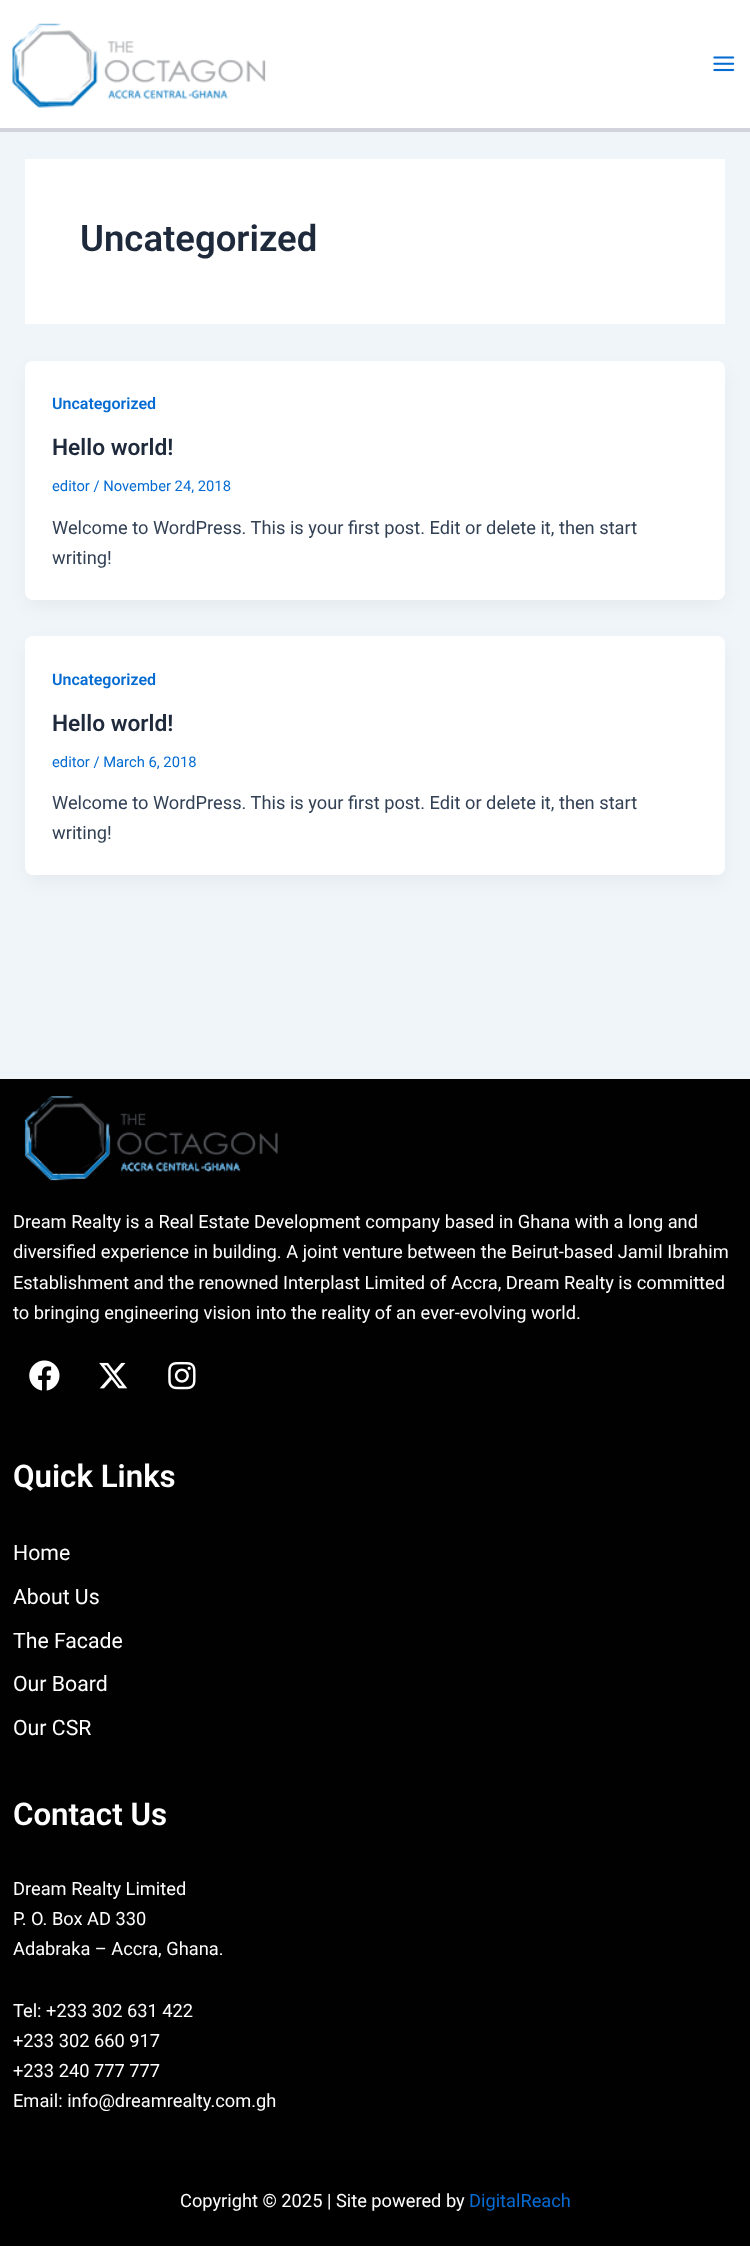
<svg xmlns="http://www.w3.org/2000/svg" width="750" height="2246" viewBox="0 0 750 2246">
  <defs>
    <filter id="blur1" x="-50%" y="-200%" width="200%" height="500%"><feGaussianBlur stdDeviation="9.5"/></filter>
  </defs>
  <rect width="100%" height="100%" fill="#f0f5fa"/>
  <rect x="0" y="0" width="750" height="128" fill="#ffffff"/>
  <rect x="0" y="128" width="750" height="4" fill="#d1d5db"/>
  <image x="12" y="23" width="254" height="85" href="img1.png"/>
  <image x="713" y="56" width="22" height="16" href="img2.png"/>
  <rect x="25" y="159" width="700" height="165" fill="#ffffff"/>
  <text x="80" y="251" font-family="Roboto" font-size="36.5" font-weight="600" fill="#1e293b">Uncategorized</text>
  <rect x="28" y="371" width="695" height="234" rx="5" fill="#101828" fill-opacity="0.05" filter="url(#blur1)"/>
  <rect x="25" y="361" width="700" height="239" rx="8" fill="#ffffff"/>
  <text x="52" y="409" font-family="Roboto" font-size="16" font-weight="600" fill="#046bd2">Uncategorized</text>
  <text x="52" y="455" font-family="Roboto" font-size="22.75" font-weight="600" fill="#1e293b">Hello world!</text>
  <text x="52" y="491" font-family="Roboto" font-size="14.75" fill="#046bd2">editor / November 24, 2018</text>
  <text x="52" y="534" font-family="Roboto" font-size="18.25" fill="#334155">Welcome to WordPress. This is your first post. Edit or delete it, then start</text>
  <text x="52" y="564" font-family="Roboto" font-size="18.25" fill="#334155">writing!</text>
  <rect x="28" y="646" width="695" height="234" rx="5" fill="#101828" fill-opacity="0.05" filter="url(#blur1)"/>
  <rect x="25" y="636" width="700" height="239" rx="8" fill="#ffffff"/>
  <text x="52" y="685" font-family="Roboto" font-size="16" font-weight="600" fill="#046bd2">Uncategorized</text>
  <text x="52" y="731" font-family="Roboto" font-size="22.75" font-weight="600" fill="#1e293b">Hello world!</text>
  <text x="52" y="767" font-family="Roboto" font-size="14.75" fill="#046bd2">editor / March 6, 2018</text>
  <text x="52" y="809" font-family="Roboto" font-size="18.25" fill="#334155">Welcome to WordPress. This is your first post. Edit or delete it, then start</text>
  <text x="52" y="839" font-family="Roboto" font-size="18.25" fill="#334155">writing!</text>
  <rect x="0" y="1079" width="750" height="1081" fill="#010102"/>
  <image x="24" y="1096" width="254" height="85" href="img3.png"/>
  <text x="13" y="1228" font-family="Roboto" font-size="18.25" fill="#ffffff">Dream Realty is a Real Estate Development company based in Ghana with a long and</text>
  <text x="13" y="1258" font-family="Roboto" font-size="18.25" fill="#ffffff">diversified experience in building. A joint venture between the Beirut-based Jamil Ibrahim</text>
  <text x="13" y="1289" font-family="Roboto" font-size="18.25" fill="#ffffff">Establishment and the renowned Interplast Limited of Accra, Dream Realty is committed</text>
  <text x="13" y="1319" font-family="Roboto" font-size="18.25" fill="#ffffff">to bringing engineering vision into the reality of an ever-evolving world.</text>
  <image x="29" y="1360" width="31" height="31" href="img4.png"/>
  <image x="99" y="1362" width="29" height="27" href="img5.png"/>
  <image x="168" y="1361" width="28" height="29" href="img6.png"/>
  <text x="13" y="1487" font-family="Roboto" font-size="31.25" font-weight="600" fill="#ffffff">Quick Links</text>
  <text x="13" y="1560" font-family="Roboto" font-size="21.25" fill="#ffffff">Home</text>
  <text x="13" y="1604" font-family="Roboto" font-size="21.25" fill="#ffffff">About Us</text>
  <text x="13" y="1648" font-family="Roboto" font-size="21.25" fill="#ffffff">The Facade</text>
  <text x="13" y="1691" font-family="Roboto" font-size="21.25" fill="#ffffff">Our Board</text>
  <text x="13" y="1735" font-family="Roboto" font-size="21.25" fill="#ffffff">Our CSR</text>
  <text x="13" y="1825" font-family="Roboto" font-size="31.25" font-weight="600" fill="#ffffff">Contact Us</text>
  <text x="13" y="1895" font-family="Roboto" font-size="18.25" fill="#ffffff">Dream Realty Limited</text>
  <text x="13" y="1925" font-family="Roboto" font-size="18.25" fill="#ffffff">P. O. Box AD 330</text>
  <text x="13" y="1955" font-family="Roboto" font-size="18.25" fill="#ffffff">Adabraka – Accra, Ghana.</text>
  <text x="13" y="2017" font-family="Roboto" font-size="18.25" fill="#ffffff">Tel: +233 302 631 422</text>
  <text x="13" y="2047" font-family="Roboto" font-size="18.25" fill="#ffffff">+233 302 660 917</text>
  <text x="13" y="2077" font-family="Roboto" font-size="18.25" fill="#ffffff">+233 240 777 777</text>
  <text x="13" y="2107" font-family="Roboto" font-size="18.25" fill="#ffffff">Email: info@dreamrealty.com.gh</text>
  <rect x="0" y="2160" width="750" height="86" fill="#000000"/>
  <text x="180" y="2207" font-family="Roboto" font-size="18.25" fill="#ffffff">Copyright © 2025 | Site powered by</text>
  <text x="469" y="2207" font-family="Roboto" font-size="18.25" fill="#046bd2">DigitalReach</text>
</svg>
